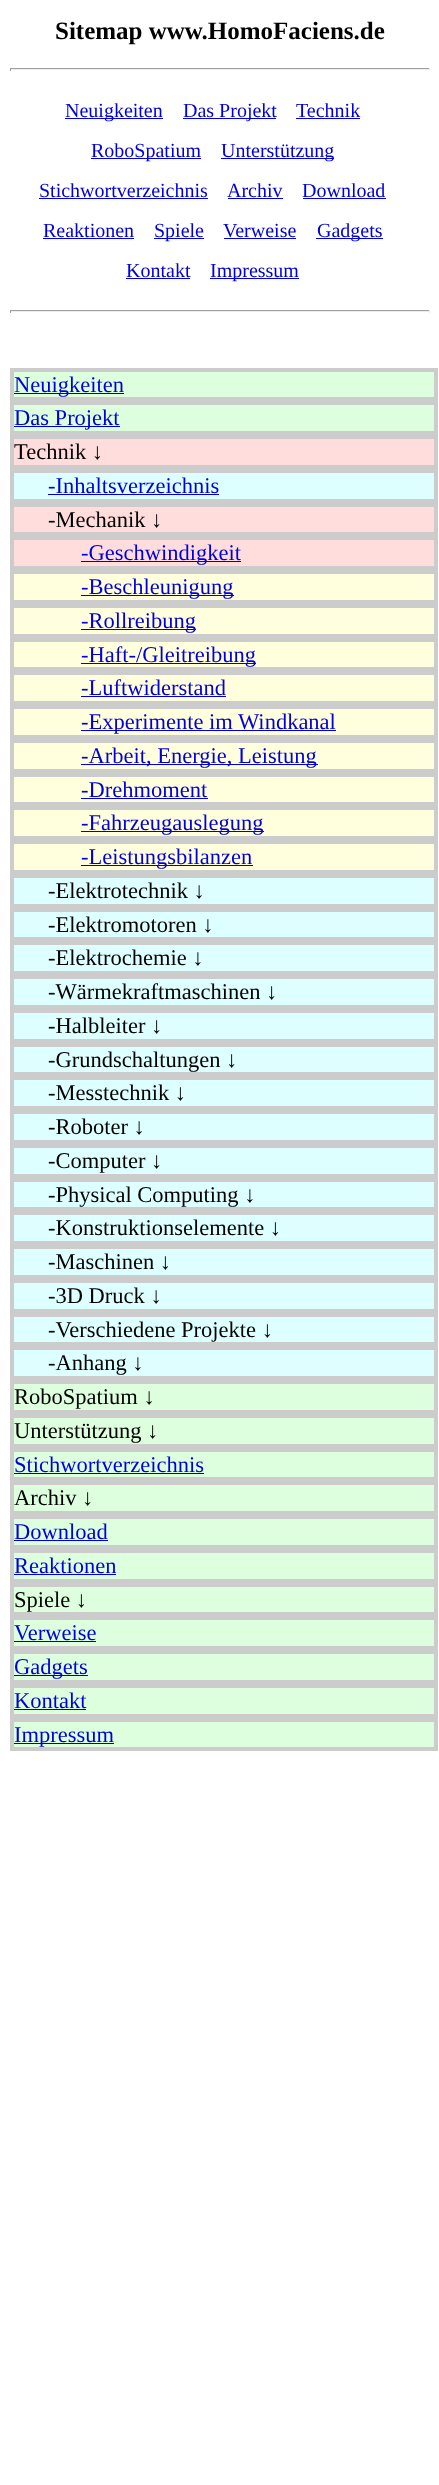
<svg xmlns="http://www.w3.org/2000/svg" width="439" height="2485" viewBox="0 0 439 2485">
  <rect width="100%" height="100%" fill="#ffffff"/>
  <text x="55" y="39" font-family="Liberation Serif" font-size="25" font-weight="bold" fill="#000000">Sitemap www.HomoFaciens.de</text>
  <rect x="10" y="68" width="420" height="1" fill="#9f9f9f"/>
  <rect x="429" y="68" width="1" height="3" fill="#eeeeee"/>
  <rect x="10" y="69" width="420" height="1" fill="#eeeeee"/>
  <rect x="10" y="68" width="1" height="3" fill="#9f9f9f"/>
  <rect x="65" y="118" width="98" height="1" fill="#0000dd"/>
  <text x="65" y="117" font-family="Liberation Serif" font-size="20" fill="#0000dd">Neuigkeiten</text>
  <rect x="183" y="118" width="93" height="1" fill="#0000dd"/>
  <text x="183" y="117" font-family="Liberation Serif" font-size="20" fill="#0000dd">Das Projekt</text>
  <text x="296" y="117" font-family="Liberation Serif" font-size="20" fill="#0000dd">Technik</text>
  <rect x="296" y="118" width="64" height="1" fill="#0000dd"/>
  <rect x="91" y="158" width="110" height="1" fill="#0000dd"/>
  <text x="91" y="157" font-family="Liberation Serif" font-size="20" fill="#0000dd">RoboSpatium</text>
  <rect x="221" y="158" width="113" height="1" fill="#0000dd"/>
  <text x="221" y="157" font-family="Liberation Serif" font-size="20" fill="#0000dd">Unterstützung</text>
  <text x="39" y="197" font-family="Liberation Serif" font-size="20" fill="#0000dd">Stichwortverzeichnis</text>
  <rect x="39" y="198" width="169" height="1" fill="#0000dd"/>
  <text x="227" y="197" font-family="Liberation Serif" font-size="20" fill="#0000dd">Archiv</text>
  <rect x="228" y="198" width="55" height="1" fill="#0000dd"/>
  <text x="302" y="197" font-family="Liberation Serif" font-size="20" fill="#0000dd">Download</text>
  <rect x="303" y="198" width="83" height="1" fill="#0000dd"/>
  <text x="43" y="237" font-family="Liberation Serif" font-size="20" fill="#0000dd">Reaktionen</text>
  <rect x="43" y="238" width="91" height="1" fill="#0000dd"/>
  <rect x="154" y="238" width="50" height="1" fill="#0000dd"/>
  <text x="154" y="237" font-family="Liberation Serif" font-size="20" fill="#0000dd">Spiele</text>
  <text x="223" y="237" font-family="Liberation Serif" font-size="20" fill="#0000dd">Verweise</text>
  <rect x="224" y="238" width="72" height="1" fill="#0000dd"/>
  <rect x="316" y="238" width="67" height="1" fill="#0000dd"/>
  <text x="317" y="237" font-family="Liberation Serif" font-size="20" fill="#0000dd">Gadgets</text>
  <text x="126" y="277" font-family="Liberation Serif" font-size="20" fill="#0000dd">Kontakt</text>
  <rect x="126" y="278" width="64" height="1" fill="#0000dd"/>
  <rect x="210" y="278" width="89" height="1" fill="#0000dd"/>
  <text x="210" y="277" font-family="Liberation Serif" font-size="20" fill="#0000dd">Impressum</text>
  <rect x="10" y="310" width="420" height="1" fill="#9f9f9f"/>
  <rect x="429" y="310" width="1" height="3" fill="#eeeeee"/>
  <rect x="10" y="311" width="420" height="1" fill="#eeeeee"/>
  <rect x="10" y="310" width="1" height="3" fill="#9f9f9f"/>
  <rect x="12" y="370" width="424" height="29" fill="#ddffdd" stroke="#cccccc" stroke-width="4"/>
  <rect x="14" y="393" width="110" height="1" fill="#0000dd"/>
  <text x="14" y="392" font-family="Liberation Serif" font-size="22.5" fill="#0000dd">Neuigkeiten</text>
  <rect x="12" y="403" width="424" height="30" fill="#ddffdd" stroke="#cccccc" stroke-width="4"/>
  <rect x="14" y="426" width="106" height="1" fill="#0000dd"/>
  <text x="14" y="425" font-family="Liberation Serif" font-size="22.5" fill="#0000dd">Das Projekt</text>
  <rect x="12" y="437" width="424" height="30" fill="#ffdddd" stroke="#cccccc" stroke-width="4"/>
  <text x="14" y="459" font-family="Liberation Serif" font-size="22.5" fill="#000000">Technik ↓</text>
  <rect x="12" y="471" width="424" height="30" fill="#ddffff" stroke="#cccccc" stroke-width="4"/>
  <text x="48" y="493" font-family="Liberation Serif" font-size="22.5" fill="#0000dd">-Inhaltsverzeichnis</text>
  <rect x="48" y="494" width="171" height="1" fill="#0000dd"/>
  <rect x="12" y="505" width="424" height="29" fill="#ffdddd" stroke="#cccccc" stroke-width="4"/>
  <text x="48" y="527" font-family="Liberation Serif" font-size="22.5" fill="#000000">-Mechanik ↓</text>
  <rect x="12" y="538" width="424" height="30" fill="#ffdddd" stroke="#cccccc" stroke-width="4"/>
  <rect x="81" y="561" width="160" height="1" fill="#0000dd"/>
  <text x="81" y="560" font-family="Liberation Serif" font-size="22.5" fill="#0000dd">-Geschwindigkeit</text>
  <rect x="12" y="572" width="424" height="30" fill="#ffffdd" stroke="#cccccc" stroke-width="4"/>
  <rect x="81" y="595" width="153" height="1" fill="#0000dd"/>
  <text x="81" y="594" font-family="Liberation Serif" font-size="22.5" fill="#0000dd">-Beschleunigung</text>
  <rect x="12" y="606" width="424" height="30" fill="#ffffdd" stroke="#cccccc" stroke-width="4"/>
  <rect x="81" y="629" width="115" height="1" fill="#0000dd"/>
  <text x="81" y="628" font-family="Liberation Serif" font-size="22.5" fill="#0000dd">-Rollreibung</text>
  <rect x="12" y="640" width="424" height="29" fill="#ffffdd" stroke="#cccccc" stroke-width="4"/>
  <rect x="81" y="663" width="175" height="1" fill="#0000dd"/>
  <text x="81" y="662" font-family="Liberation Serif" font-size="22.5" fill="#0000dd">-Haft-/Gleitreibung</text>
  <rect x="12" y="673" width="424" height="30" fill="#ffffdd" stroke="#cccccc" stroke-width="4"/>
  <text x="81" y="695" font-family="Liberation Serif" font-size="22.5" fill="#0000dd">-Luftwiderstand</text>
  <rect x="81" y="696" width="145" height="1" fill="#0000dd"/>
  <rect x="12" y="707" width="424" height="30" fill="#ffffdd" stroke="#cccccc" stroke-width="4"/>
  <rect x="81" y="730" width="255" height="1" fill="#0000dd"/>
  <text x="81" y="729" font-family="Liberation Serif" font-size="22.5" fill="#0000dd">-Experimente im Windkanal</text>
  <rect x="12" y="741" width="424" height="30" fill="#ffffdd" stroke="#cccccc" stroke-width="4"/>
  <rect x="81" y="764" width="237" height="1" fill="#0000dd"/>
  <text x="81" y="763" font-family="Liberation Serif" font-size="22.5" fill="#0000dd">-Arbeit, Energie, Leistung</text>
  <rect x="12" y="775" width="424" height="29" fill="#ffffdd" stroke="#cccccc" stroke-width="4"/>
  <text x="81" y="797" font-family="Liberation Serif" font-size="22.5" fill="#0000dd">-Drehmoment</text>
  <rect x="81" y="798" width="127" height="1" fill="#0000dd"/>
  <rect x="12" y="808" width="424" height="30" fill="#ffffdd" stroke="#cccccc" stroke-width="4"/>
  <rect x="81" y="831" width="183" height="1" fill="#0000dd"/>
  <text x="81" y="830" font-family="Liberation Serif" font-size="22.5" fill="#0000dd">-Fahrzeugauslegung</text>
  <rect x="12" y="842" width="424" height="30" fill="#ffffdd" stroke="#cccccc" stroke-width="4"/>
  <rect x="81" y="865" width="172" height="1" fill="#0000dd"/>
  <text x="81" y="864" font-family="Liberation Serif" font-size="22.5" fill="#0000dd">-Leistungsbilanzen</text>
  <rect x="12" y="876" width="424" height="30" fill="#ddffff" stroke="#cccccc" stroke-width="4"/>
  <text x="48" y="898" font-family="Liberation Serif" font-size="22.5" fill="#000000">-Elektrotechnik ↓</text>
  <rect x="12" y="910" width="424" height="29" fill="#ddffff" stroke="#cccccc" stroke-width="4"/>
  <text x="48" y="932" font-family="Liberation Serif" font-size="22.5" fill="#000000">-Elektromotoren ↓</text>
  <rect x="12" y="943" width="424" height="30" fill="#ddffff" stroke="#cccccc" stroke-width="4"/>
  <text x="48" y="965" font-family="Liberation Serif" font-size="22.5" fill="#000000">-Elektrochemie ↓</text>
  <rect x="12" y="977" width="424" height="30" fill="#ddffff" stroke="#cccccc" stroke-width="4"/>
  <text x="48" y="999" font-family="Liberation Serif" font-size="22.5" fill="#000000">-Wärmekraftmaschinen ↓</text>
  <rect x="12" y="1011" width="424" height="30" fill="#ddffff" stroke="#cccccc" stroke-width="4"/>
  <text x="48" y="1033" font-family="Liberation Serif" font-size="22.5" fill="#000000">-Halbleiter ↓</text>
  <rect x="12" y="1045" width="424" height="29" fill="#ddffff" stroke="#cccccc" stroke-width="4"/>
  <text x="48" y="1067" font-family="Liberation Serif" font-size="22.5" fill="#000000">-Grundschaltungen ↓</text>
  <rect x="12" y="1078" width="424" height="30" fill="#ddffff" stroke="#cccccc" stroke-width="4"/>
  <text x="48" y="1100" font-family="Liberation Serif" font-size="22.5" fill="#000000">-Messtechnik ↓</text>
  <rect x="12" y="1112" width="424" height="30" fill="#ddffff" stroke="#cccccc" stroke-width="4"/>
  <text x="48" y="1134" font-family="Liberation Serif" font-size="22.5" fill="#000000">-Roboter ↓</text>
  <rect x="12" y="1146" width="424" height="30" fill="#ddffff" stroke="#cccccc" stroke-width="4"/>
  <text x="48" y="1168" font-family="Liberation Serif" font-size="22.5" fill="#000000">-Computer ↓</text>
  <rect x="12" y="1180" width="424" height="29" fill="#ddffff" stroke="#cccccc" stroke-width="4"/>
  <text x="48" y="1202" font-family="Liberation Serif" font-size="22.5" fill="#000000">-Physical Computing ↓</text>
  <rect x="12" y="1213" width="424" height="30" fill="#ddffff" stroke="#cccccc" stroke-width="4"/>
  <text x="48" y="1235" font-family="Liberation Serif" font-size="22.5" fill="#000000">-Konstruktionselemente ↓</text>
  <rect x="12" y="1247" width="424" height="30" fill="#ddffff" stroke="#cccccc" stroke-width="4"/>
  <text x="48" y="1269" font-family="Liberation Serif" font-size="22.5" fill="#000000">-Maschinen ↓</text>
  <rect x="12" y="1281" width="424" height="30" fill="#ddffff" stroke="#cccccc" stroke-width="4"/>
  <text x="48" y="1303" font-family="Liberation Serif" font-size="22.5" fill="#000000">-3D Druck ↓</text>
  <rect x="12" y="1315" width="424" height="29" fill="#ddffff" stroke="#cccccc" stroke-width="4"/>
  <text x="48" y="1337" font-family="Liberation Serif" font-size="22.5" fill="#000000">-Verschiedene Projekte ↓</text>
  <rect x="12" y="1348" width="424" height="30" fill="#ddffff" stroke="#cccccc" stroke-width="4"/>
  <text x="48" y="1370" font-family="Liberation Serif" font-size="22.5" fill="#000000">-Anhang ↓</text>
  <rect x="12" y="1382" width="424" height="30" fill="#ddffdd" stroke="#cccccc" stroke-width="4"/>
  <text x="14" y="1404" font-family="Liberation Serif" font-size="22.5" fill="#000000">RoboSpatium ↓</text>
  <rect x="12" y="1416" width="424" height="30" fill="#ddffdd" stroke="#cccccc" stroke-width="4"/>
  <text x="14" y="1438" font-family="Liberation Serif" font-size="22.5" fill="#000000">Unterstützung ↓</text>
  <rect x="12" y="1450" width="424" height="29" fill="#ddffdd" stroke="#cccccc" stroke-width="4"/>
  <text x="14" y="1472" font-family="Liberation Serif" font-size="22.5" fill="#0000dd">Stichwortverzeichnis</text>
  <rect x="14" y="1473" width="190" height="1" fill="#0000dd"/>
  <rect x="12" y="1483" width="424" height="30" fill="#ddffdd" stroke="#cccccc" stroke-width="4"/>
  <text x="14" y="1505" font-family="Liberation Serif" font-size="22.5" fill="#000000">Archiv ↓</text>
  <rect x="12" y="1517" width="424" height="30" fill="#ddffdd" stroke="#cccccc" stroke-width="4"/>
  <text x="14" y="1539" font-family="Liberation Serif" font-size="22.5" fill="#0000dd">Download</text>
  <rect x="14" y="1540" width="94" height="1" fill="#0000dd"/>
  <rect x="12" y="1551" width="424" height="30" fill="#ddffdd" stroke="#cccccc" stroke-width="4"/>
  <text x="14" y="1573" font-family="Liberation Serif" font-size="22.5" fill="#0000dd">Reaktionen</text>
  <rect x="14" y="1574" width="102" height="1" fill="#0000dd"/>
  <rect x="12" y="1585" width="424" height="29" fill="#ddffdd" stroke="#cccccc" stroke-width="4"/>
  <text x="14" y="1607" font-family="Liberation Serif" font-size="22.5" fill="#000000">Spiele ↓</text>
  <rect x="12" y="1618" width="424" height="30" fill="#ddffdd" stroke="#cccccc" stroke-width="4"/>
  <text x="14" y="1640" font-family="Liberation Serif" font-size="22.5" fill="#0000dd">Verweise</text>
  <rect x="14" y="1641" width="82" height="1" fill="#0000dd"/>
  <rect x="12" y="1652" width="424" height="30" fill="#ddffdd" stroke="#cccccc" stroke-width="4"/>
  <rect x="14" y="1675" width="74" height="1" fill="#0000dd"/>
  <text x="14" y="1674" font-family="Liberation Serif" font-size="22.5" fill="#0000dd">Gadgets</text>
  <rect x="12" y="1686" width="424" height="30" fill="#ddffdd" stroke="#cccccc" stroke-width="4"/>
  <text x="14" y="1708" font-family="Liberation Serif" font-size="22.5" fill="#0000dd">Kontakt</text>
  <rect x="14" y="1709" width="72" height="1" fill="#0000dd"/>
  <rect x="12" y="1720" width="424" height="29" fill="#ddffdd" stroke="#cccccc" stroke-width="4"/>
  <rect x="14" y="1743" width="100" height="1" fill="#0000dd"/>
  <text x="14" y="1742" font-family="Liberation Serif" font-size="22.5" fill="#0000dd">Impressum</text>
</svg>
